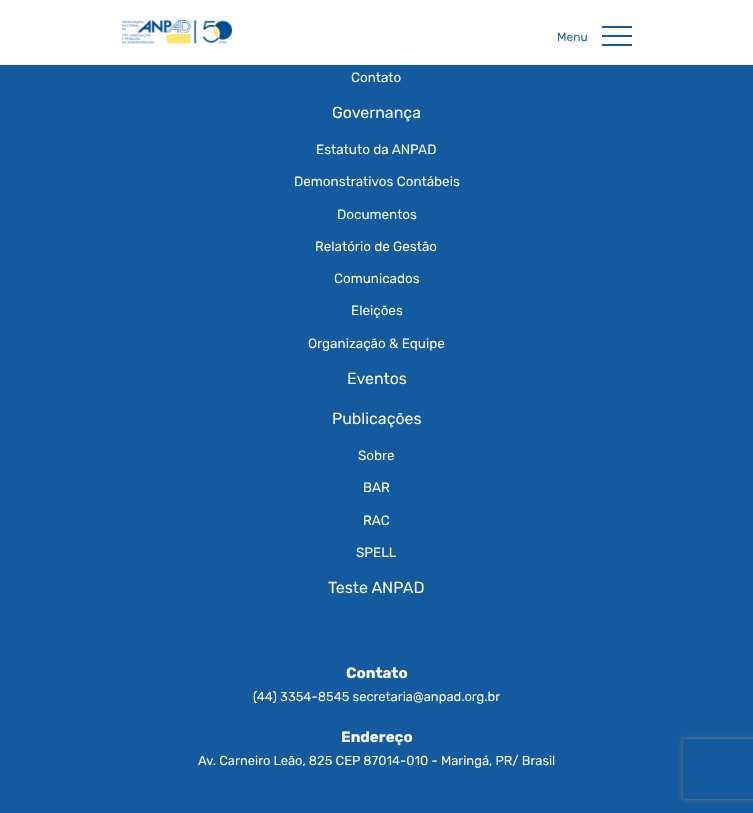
<svg xmlns="http://www.w3.org/2000/svg" width="753" height="813" viewBox="0 0 753 813">
  <defs>
    <clipPath id="clip1"><path d="M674 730H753V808H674ZM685 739H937C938 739 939 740 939 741V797C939 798 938 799 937 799H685C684 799 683 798 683 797V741C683 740 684 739 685 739Z" clip-rule="evenodd"/></clipPath>
    <filter id="blur1" x="-50%" y="-200%" width="200%" height="500%"><feGaussianBlur stdDeviation="2.5"/></filter>
  </defs>
  <rect width="100%" height="100%" fill="#135b9e"/>
  <rect x="0" y="0" width="753" height="64" fill="#ffffff"/>
  <rect x="0" y="64" width="753" height="1" fill="#eeeeee"/>
  <image x="121" y="20" width="111" height="25" href="img1.png"/>
  <text x="557" y="41" font-family="Rubik" font-size="12" fill="#135b9e">Menu</text>
  <rect x="602" y="35" width="30" height="2" fill="#135b9e"/>
  <rect x="602" y="26" width="30" height="2" fill="#135b9e"/>
  <rect x="602" y="44" width="30" height="2" fill="#135b9e"/>
  <text x="351" y="82" font-family="Rubik" font-size="13.5" fill="#ffffff">Contato</text>
  <text x="332" y="118" font-family="Rubik" font-size="16" fill="#ffffff">Governança</text>
  <text x="316" y="154" font-family="Rubik" font-size="13.5" fill="#ffffff">Estatuto da ANPAD</text>
  <text x="294" y="186" font-family="Rubik" font-size="13.5" fill="#ffffff">Demonstrativos Contábeis</text>
  <text x="337" y="219" font-family="Rubik" font-size="13.5" fill="#ffffff">Documentos</text>
  <text x="315" y="251" font-family="Rubik" font-size="13.5" fill="#ffffff">Relatório de Gestão</text>
  <text x="334" y="283" font-family="Rubik" font-size="13.5" fill="#ffffff">Comunicados</text>
  <text x="351" y="315" font-family="Rubik" font-size="13.5" fill="#ffffff">Eleições</text>
  <text x="308" y="348" font-family="Rubik" font-size="13.5" fill="#ffffff">Organização &amp; Equipe</text>
  <text x="347" y="384" font-family="Rubik" font-size="16" fill="#ffffff">Eventos</text>
  <text x="332" y="424" font-family="Rubik" font-size="16" fill="#ffffff">Publicações</text>
  <text x="358" y="460" font-family="Rubik" font-size="13.5" fill="#ffffff">Sobre</text>
  <text x="363" y="492" font-family="Rubik" font-size="13.5" fill="#ffffff">BAR</text>
  <text x="363" y="525" font-family="Rubik" font-size="13.5" fill="#ffffff">RAC</text>
  <text x="356" y="557" font-family="Rubik" font-size="13.5" fill="#ffffff">SPELL</text>
  <text x="328" y="593" font-family="Rubik" font-size="16" fill="#ffffff">Teste ANPAD</text>
  <text x="346" y="678" font-family="Rubik" font-size="15" font-weight="bold" fill="#ffffff">Contato</text>
  <text x="253" y="701" font-family="Rubik" font-size="13" fill="#ffffff">(44) 3354-8545 secretaria@anpad.org.br</text>
  <text x="341" y="742" font-family="Rubik" font-size="15" font-weight="bold" fill="#ffffff">Endereço</text>
  <text x="198" y="765" font-family="Rubik" font-size="13" fill="#ffffff">Av. Carneiro Leão, 825 CEP 87014-010 - Maringá, PR/ Brasil</text>
  <g clip-path="url(#clip1)">
    <rect x="683" y="739" width="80" height="60" rx="2" fill="#808080" filter="url(#blur1)"/>
  </g>
</svg>
